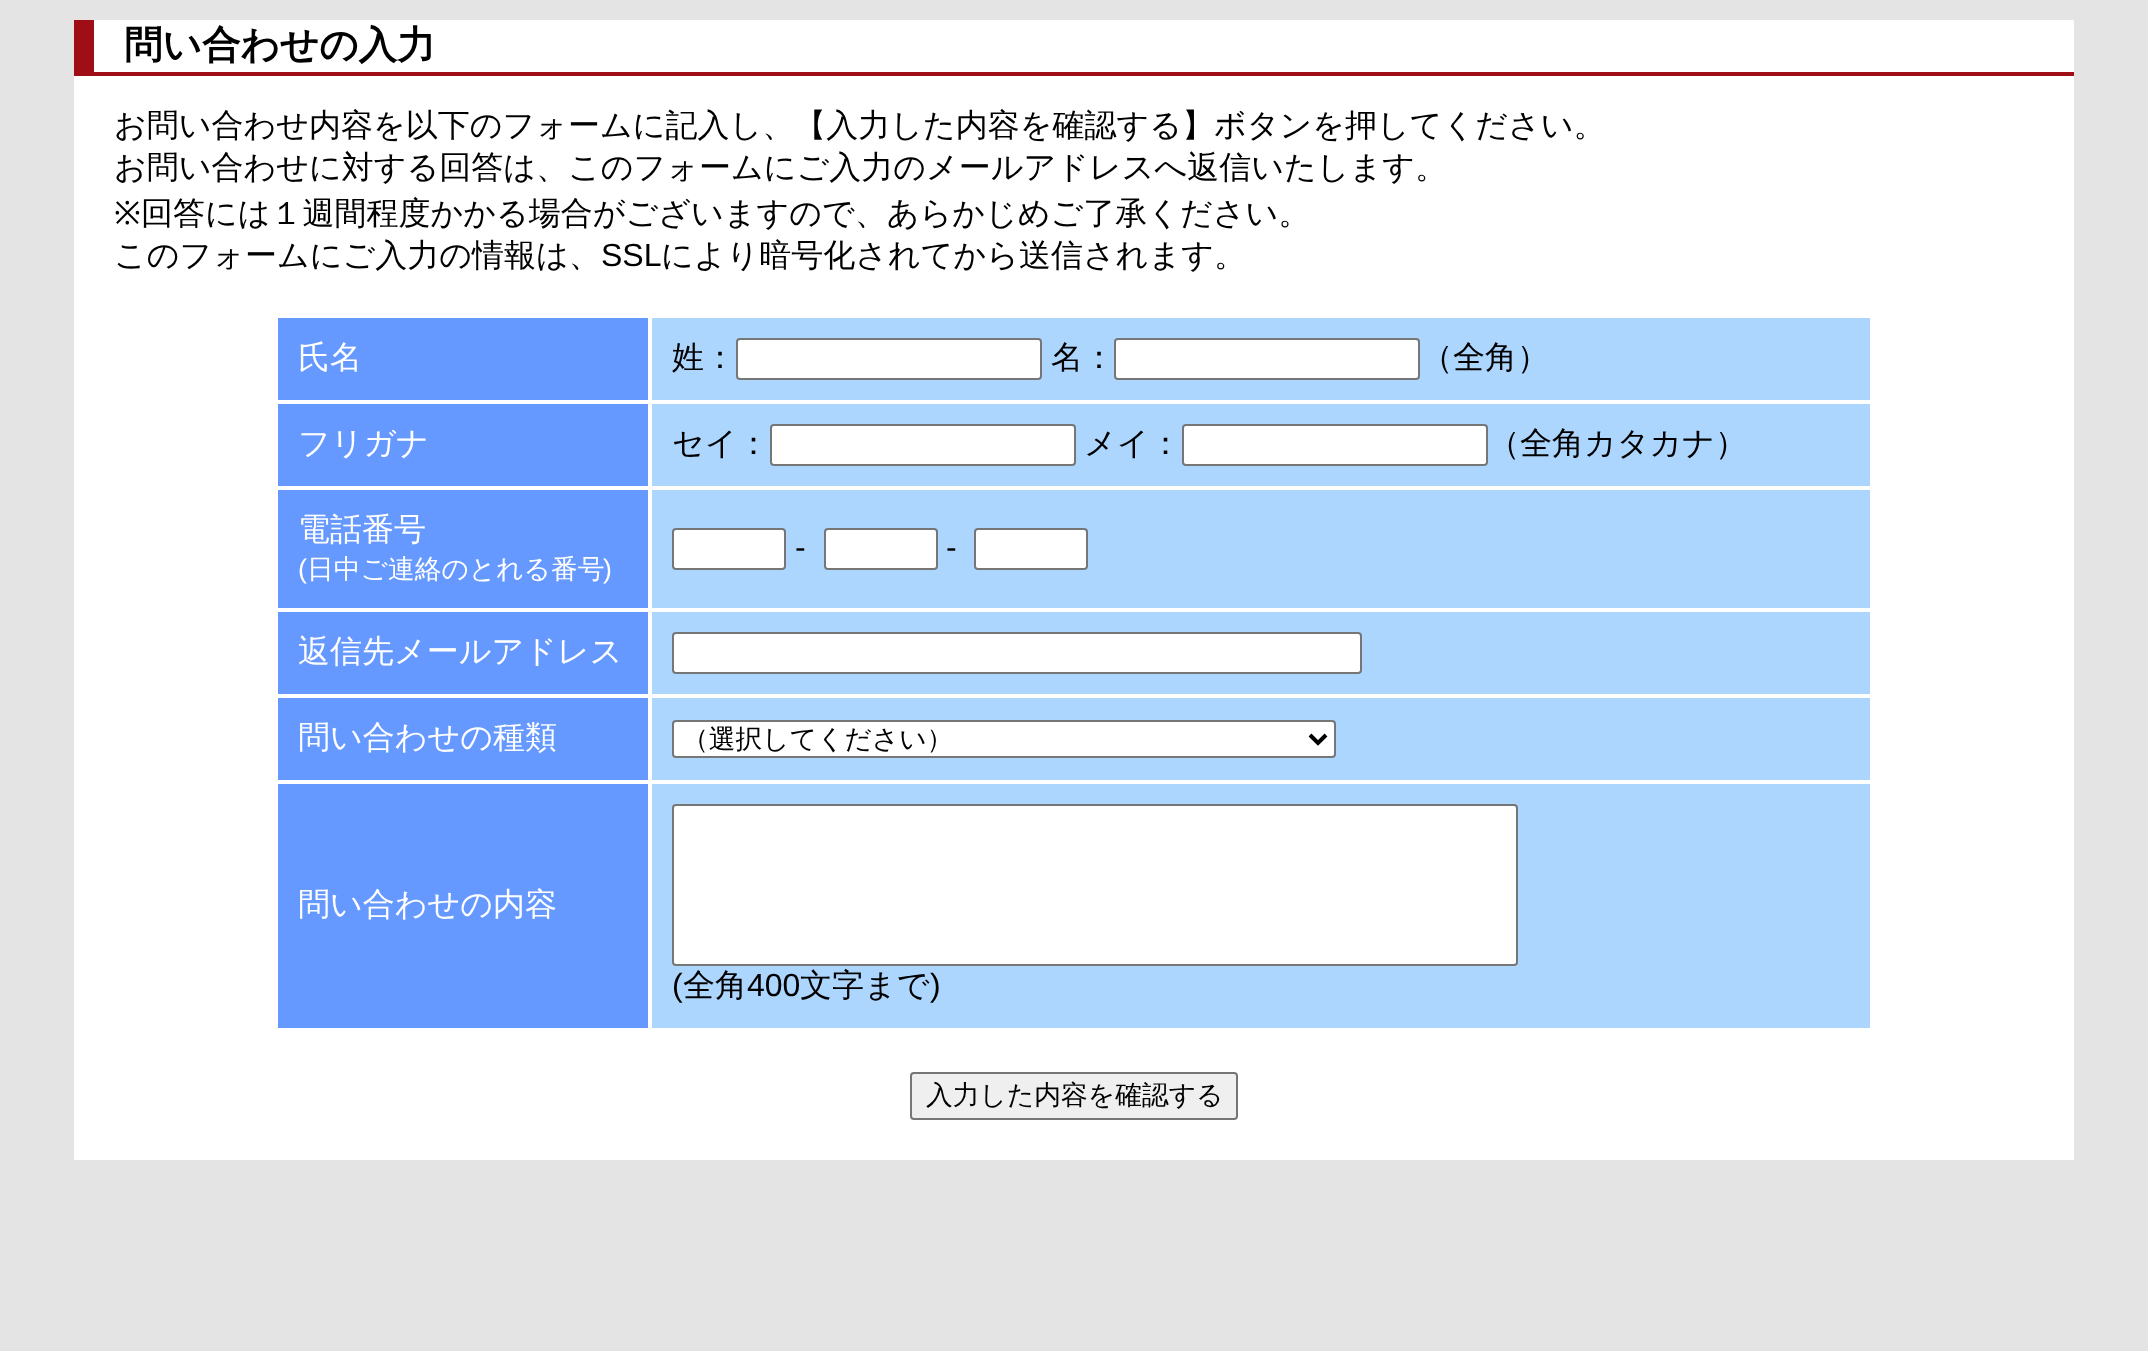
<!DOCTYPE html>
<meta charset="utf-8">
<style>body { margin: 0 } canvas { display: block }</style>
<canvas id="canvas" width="2148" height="1351"></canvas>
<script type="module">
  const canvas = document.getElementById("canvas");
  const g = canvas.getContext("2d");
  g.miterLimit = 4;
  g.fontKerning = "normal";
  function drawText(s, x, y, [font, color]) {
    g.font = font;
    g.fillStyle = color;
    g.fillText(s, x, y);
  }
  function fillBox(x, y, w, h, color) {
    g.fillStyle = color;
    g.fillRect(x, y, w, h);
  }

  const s1 = ["bold 38.5px WenQuanYi Zen Hei", "#000000"];
  const s2 = ["500 32px WenQuanYi Zen Hei", "#000000"];
  const s3 = ["32px Noto Sans", "#000000"];
  const s4 = ["32px Liberation Sans", "#000000"];
  const s5 = ["500 32px WenQuanYi Zen Hei", "#FFFFFF"];
  const s6 = ["26.75px Liberation Sans", "#FFFFFF"];
  const s7 = ["500 26.75px WenQuanYi Zen Hei", "#FFFFFF"];
  const s8 = ["500 26.75px WenQuanYi Zen Hei", "#000000"];

  fillBox(0, 0, 2148, 1351, "#E4E4E4");
  fillBox(74, 20, 2000, 1140, "#FFFFFF");
  fillBox(94, 72, 1980, 4, "#A00E15");
  fillBox(74, 20, 20, 56, "#A00E15");
  drawText("問い合わせの入力", 124, 58, s1);
  drawText("お問い合わせ内容を以下のフォームに記入し、【入力した内容を確認する】ボタンを押してください。", 114, 136, s2);
  drawText("お問い合わせに対する回答は、このフォームにご入力のメールアドレスへ返信いたします。", 114, 178, s2);
  drawText("※", 114, 224, s3);
  drawText("回答には１週間程度かかる場合がございますので、あらかじめご了承ください。", 141, 224, s2);
  drawText("このフォームにご入力の情報は、", 114, 266, s2);
  drawText("SSL", 601, 266, s4);
  drawText("により暗号化されてから送信されます。", 661, 266, s2);
  fillBox(278, 318, 370, 82, "#6699FF");
  drawText("氏名", 298, 368, s5);
  fillBox(652, 318, 1218, 82, "#ADD6FF");
  drawText("姓：", 672, 368, s2);
  g.fillStyle = "#FFFFFF";
  g.beginPath();
  g.roundRect(737, 339, 304, 40, 3);
  g.fill();
  g.strokeStyle = "#767676";
  g.lineWidth = 2;
  g.stroke();
  drawText("名：", 1051, 368, s2);
  g.fillStyle = "#FFFFFF";
  g.beginPath();
  g.roundRect(1115, 339, 304, 40, 3);
  g.fill();
  g.stroke();
  drawText("（全角）", 1421, 368, s2);
  fillBox(278, 404, 370, 82, "#6699FF");
  drawText("フリガナ", 298, 454, s5);
  fillBox(652, 404, 1218, 82, "#ADD6FF");
  drawText("セイ：", 672, 454, s2);
  g.fillStyle = "#FFFFFF";
  g.beginPath();
  g.roundRect(771, 425, 304, 40, 3);
  g.fill();
  g.stroke();
  drawText("メイ：", 1084, 454, s2);
  g.fillStyle = "#FFFFFF";
  g.beginPath();
  g.roundRect(1183, 425, 304, 40, 3);
  g.fill();
  g.stroke();
  drawText("（全角カタカナ）", 1488, 454, s2);
  fillBox(278, 490, 370, 118, "#6699FF");
  drawText("電話番号", 298, 540, s5);
  drawText("(", 298, 578, s6);
  drawText("日中ご連絡のとれる番号", 307, 578, s7);
  drawText(")", 603, 578, s6);
  fillBox(652, 490, 1218, 118, "#ADD6FF");
  g.fillStyle = "#FFFFFF";
  g.beginPath();
  g.roundRect(673, 529, 112, 40, 3);
  g.fill();
  g.stroke();
  drawText("-", 795, 558, s4);
  g.fillStyle = "#FFFFFF";
  g.beginPath();
  g.roundRect(825, 529, 112, 40, 3);
  g.fill();
  g.stroke();
  drawText("-", 946, 558, s4);
  g.fillStyle = "#FFFFFF";
  g.beginPath();
  g.roundRect(975, 529, 112, 40, 3);
  g.fill();
  g.stroke();
  fillBox(278, 612, 370, 82, "#6699FF");
  drawText("返信先メールアドレス", 298, 662, s5);
  fillBox(652, 612, 1218, 82, "#ADD6FF");
  g.fillStyle = "#FFFFFF";
  g.beginPath();
  g.roundRect(673, 633, 688, 40, 3);
  g.fill();
  g.stroke();
  fillBox(278, 698, 370, 82, "#6699FF");
  drawText("問い合わせの種類", 298, 748, s5);
  fillBox(652, 698, 1218, 82, "#ADD6FF");
  g.fillStyle = "#FFFFFF";
  g.beginPath();
  g.roundRect(673, 721, 662, 36, 3);
  g.fill();
  g.stroke();
  g.beginPath();
  g.moveTo(1310, 735);
  g.lineTo(1318, 743);
  g.lineTo(1326, 735);
  g.strokeStyle = "#000000";
  g.lineWidth = 4;
  g.stroke();
  drawText("（選択してください）", 682, 748, s8);
  fillBox(278, 784, 370, 244, "#6699FF");
  drawText("問い合わせの内容", 298, 915, s5);
  fillBox(652, 784, 1218, 244, "#ADD6FF");
  g.fillStyle = "#FFFFFF";
  g.beginPath();
  g.roundRect(673, 805, 844, 160, 3);
  g.fill();
  g.strokeStyle = "#767676";
  g.lineWidth = 2;
  g.stroke();
  drawText("(", 672, 996, s4);
  drawText("全角", 683, 996, s2);
  drawText("400", 747, 996, s4);
  drawText("文字まで", 800, 996, s2);
  drawText(")", 930, 996, s4);
  g.fillStyle = "#EFEFEF";
  g.beginPath();
  g.roundRect(911, 1073, 326, 46, 3);
  g.fill();
  g.stroke();
  drawText("入力した内容を確認する", 926, 1104, s8);
</script>
